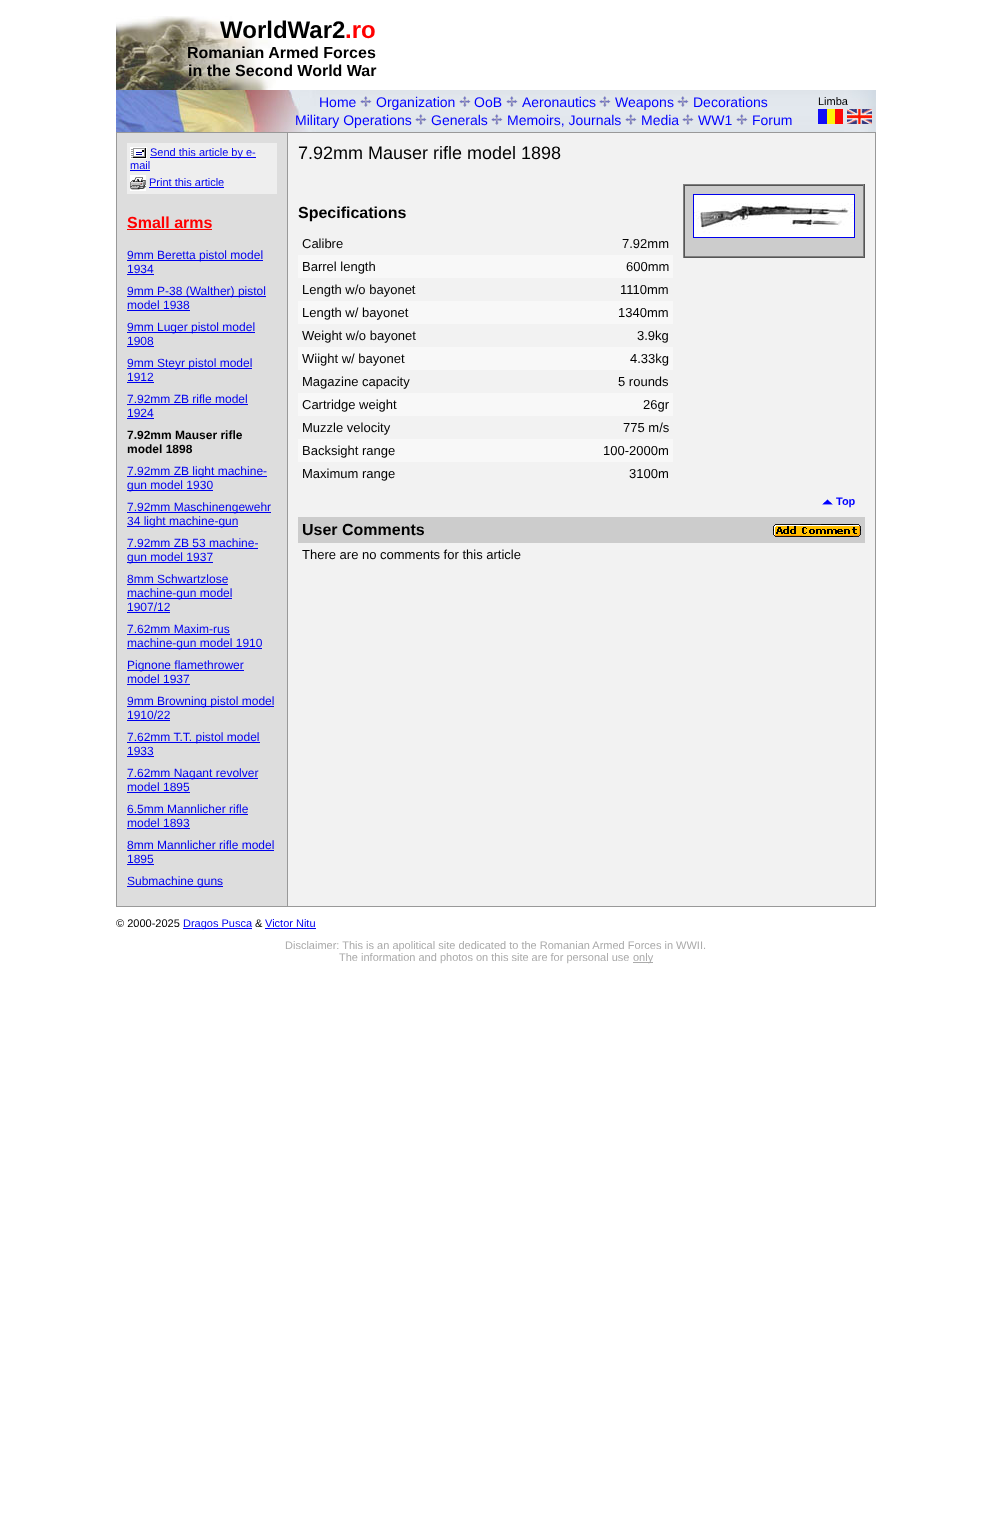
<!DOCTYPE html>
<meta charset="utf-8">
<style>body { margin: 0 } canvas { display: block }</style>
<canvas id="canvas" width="992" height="1536"></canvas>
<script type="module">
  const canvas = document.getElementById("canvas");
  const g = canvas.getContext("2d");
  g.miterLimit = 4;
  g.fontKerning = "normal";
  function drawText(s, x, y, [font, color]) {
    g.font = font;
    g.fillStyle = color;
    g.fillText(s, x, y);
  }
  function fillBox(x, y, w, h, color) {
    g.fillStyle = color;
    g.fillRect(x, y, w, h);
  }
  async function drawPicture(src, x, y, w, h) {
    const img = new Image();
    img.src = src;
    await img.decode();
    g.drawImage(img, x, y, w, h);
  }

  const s1 = ["bold 24px Liberation Sans", "#000000"];
  const s2 = ["bold 24px Liberation Sans", "#FF0000"];
  const s3 = ["bold 16px Liberation Sans", "#000000"];
  const s4 = ["14px Liberation Sans", "#0000FF"];
  const s5 = ["11px Liberation Sans", "#000000"];
  const s6 = ["11px Liberation Sans", "#0000EE"];
  const s7 = ["bold 16px Liberation Sans", "#FF0000"];
  const s8 = ["12px Liberation Sans", "#0000EE"];
  const s9 = ["bold 12px Liberation Sans", "#000000"];
  const s10 = ["18px Liberation Sans", "#000000"];
  const s11 = ["13px Liberation Sans", "#000000"];
  const s12 = ["bold 11px Liberation Sans", "#0000FF"];
  const s13 = ["11px Liberation Sans", "#AAAAAA"];

  fillBox(0, 0, 992, 1536, "#FFFFFF");
  await drawPicture("pic1.png", 116, 16, 160, 74);
  drawText("WorldWar2", 220, 38, s1);
  drawText(".ro", 345, 38, s2);
  drawText("Romanian Armed Forces", 187, 58, s3);
  drawText("in the Second World War", 188, 76, s3);
  await drawPicture("pic2.png", 116, 90, 760, 42);
  drawText("Home", 319, 107, s4);
  await drawPicture("pic3.png", 360, 96, 12, 11);
  drawText("Organization", 376, 107, s4);
  await drawPicture("pic3.png", 459, 96, 12, 11);
  drawText("OoB", 474, 107, s4);
  await drawPicture("pic3.png", 506, 96, 12, 11);
  drawText("Aeronautics", 522, 107, s4);
  await drawPicture("pic3.png", 599, 96, 12, 11);
  drawText("Weapons", 615, 107, s4);
  await drawPicture("pic3.png", 677, 96, 12, 11);
  drawText("Decorations", 693, 107, s4);
  drawText("Military Operations", 295, 125, s4);
  await drawPicture("pic3.png", 415, 114, 12, 11);
  drawText("Generals", 431, 125, s4);
  await drawPicture("pic3.png", 491, 114, 12, 11);
  drawText("Memoirs, Journals", 507, 125, s4);
  await drawPicture("pic3.png", 625, 114, 12, 11);
  drawText("Media", 641, 125, s4);
  await drawPicture("pic3.png", 682, 114, 12, 11);
  drawText("WW1", 698, 125, s4);
  await drawPicture("pic3.png", 736, 114, 12, 11);
  drawText("Forum", 752, 125, s4);
  drawText("Limba", 818, 105, s5);
  await drawPicture("pic4.png", 818, 109, 25, 15);
  await drawPicture("pic5.png", 847, 109, 25, 15);
  fillBox(116, 132, 760, 1, "#999999");
  fillBox(116, 133, 1, 773, "#999999");
  fillBox(117, 133, 170, 773, "#DDDDDD");
  fillBox(127, 143, 150, 51, "#EEEEEE");
  await drawPicture("pic6.png", 130, 147, 17, 12);
  fillBox(150, 157, 106, 1, "#0000EE");
  drawText("Send this article by e-", 150, 156, s6);
  drawText("mail", 130, 169, s6);
  fillBox(130, 170, 20, 1, "#0000EE");
  await drawPicture("pic7.png", 130, 175, 16, 16);
  drawText("Print this article", 149, 186, s6);
  fillBox(149, 187, 75, 1, "#0000EE");
  drawText("Small arms", 127, 228, s7);
  fillBox(127, 229, 85, 1, "#FF0000");
  fillBox(127, 260, 136, 1, "#0000EE");
  drawText("9mm Beretta pistol model", 127, 259, s8);
  drawText("1934", 127, 273, s8);
  fillBox(127, 274, 27, 1, "#0000EE");
  fillBox(127, 296, 139, 1, "#0000EE");
  drawText("9mm P-38 (Walther) pistol", 127, 295, s8);
  drawText("model 1938", 127, 309, s8);
  fillBox(127, 310, 63, 1, "#0000EE");
  fillBox(127, 332, 128, 1, "#0000EE");
  drawText("9mm Luger pistol model", 127, 331, s8);
  drawText("1908", 127, 345, s8);
  fillBox(127, 346, 27, 1, "#0000EE");
  fillBox(127, 368, 125, 1, "#0000EE");
  drawText("9mm Steyr pistol model", 127, 367, s8);
  drawText("1912", 127, 381, s8);
  fillBox(127, 382, 27, 1, "#0000EE");
  drawText("7.92mm ZB rifle model", 127, 403, s8);
  fillBox(127, 404, 121, 1, "#0000EE");
  drawText("1924", 127, 417, s8);
  fillBox(127, 418, 27, 1, "#0000EE");
  drawText("7.92mm Mauser rifle", 127, 439, s9);
  drawText("model 1898", 127, 453, s9);
  fillBox(127, 476, 140, 1, "#0000EE");
  drawText("7.92mm ZB light machine-", 127, 475, s8);
  fillBox(127, 490, 86, 1, "#0000EE");
  drawText("gun model 1930", 127, 489, s8);
  fillBox(127, 512, 144, 1, "#0000EE");
  drawText("7.92mm Maschinengewehr", 127, 511, s8);
  fillBox(127, 526, 111, 1, "#0000EE");
  drawText("34 light machine-gun", 127, 525, s8);
  drawText("7.92mm ZB 53 machine-", 127, 547, s8);
  fillBox(127, 548, 131, 1, "#0000EE");
  fillBox(127, 562, 86, 1, "#0000EE");
  drawText("gun model 1937", 127, 561, s8);
  drawText("8mm Schwartzlose", 127, 583, s8);
  fillBox(127, 584, 101, 1, "#0000EE");
  fillBox(127, 598, 105, 1, "#0000EE");
  drawText("machine-gun model", 127, 597, s8);
  drawText("1907/12", 127, 611, s8);
  fillBox(127, 612, 43, 1, "#0000EE");
  drawText("7.62mm Maxim-rus", 127, 633, s8);
  fillBox(127, 634, 103, 1, "#0000EE");
  fillBox(127, 648, 135, 1, "#0000EE");
  drawText("machine-gun model 1910", 127, 647, s8);
  fillBox(127, 670, 117, 1, "#0000EE");
  drawText("Pignone flamethrower", 127, 669, s8);
  drawText("model 1937", 127, 683, s8);
  fillBox(127, 684, 63, 1, "#0000EE");
  fillBox(127, 706, 147, 1, "#0000EE");
  drawText("9mm Browning pistol model", 127, 705, s8);
  drawText("1910/22", 127, 719, s8);
  fillBox(127, 720, 43, 1, "#0000EE");
  fillBox(127, 742, 133, 1, "#0000EE");
  drawText("7.62mm T.T. pistol model", 127, 741, s8);
  drawText("1933", 127, 755, s8);
  fillBox(127, 756, 27, 1, "#0000EE");
  fillBox(127, 778, 131, 1, "#0000EE");
  drawText("7.62mm Nagant revolver", 127, 777, s8);
  drawText("model 1895", 127, 791, s8);
  fillBox(127, 792, 63, 1, "#0000EE");
  drawText("6.5mm Mannlicher rifle", 127, 813, s8);
  fillBox(127, 814, 121, 1, "#0000EE");
  drawText("model 1893", 127, 827, s8);
  fillBox(127, 828, 63, 1, "#0000EE");
  drawText("8mm Mannlicher rifle model", 127, 849, s8);
  fillBox(127, 850, 147, 1, "#0000EE");
  drawText("1895", 127, 863, s8);
  fillBox(127, 864, 27, 1, "#0000EE");
  fillBox(127, 886, 96, 1, "#0000EE");
  drawText("Submachine guns", 127, 885, s8);
  fillBox(287, 133, 1, 773, "#999999");
  fillBox(288, 133, 587, 773, "#F2F2F2");
  drawText("7.92mm Mauser rifle model 1898", 298, 159, s10);
  drawText("Specifications", 298, 218, s3);
  fillBox(685, 186, 178, 70, "#CCCCCC");
  fillBox(683, 184, 182, 1, "#808080");
  fillBox(864, 184, 1, 74, "#555555");
  fillBox(683, 257, 182, 1, "#555555");
  fillBox(683, 184, 1, 74, "#808080");
  fillBox(684, 185, 180, 1, "#555555");
  fillBox(863, 185, 1, 72, "#808080");
  fillBox(684, 256, 180, 1, "#808080");
  fillBox(684, 185, 1, 72, "#555555");
  g.strokeStyle = "#0000EE";
  g.strokeRect(693.5, 194.5, 161, 43);
  await drawPicture("pic8.png", 694, 195, 160, 42);
  drawText("Calibre", 302, 248, s11);
  drawText("7.92mm", 622, 248, s11);
  fillBox(298, 255, 375, 23, "#F8F8F8");
  drawText("Barrel length", 302, 271, s11);
  drawText("600mm", 626, 271, s11);
  drawText("Length w/o bayonet", 302, 294, s11);
  drawText("1110mm", 620, 294, s11);
  fillBox(298, 301, 375, 23, "#F8F8F8");
  drawText("Length w/ bayonet", 302, 317, s11);
  drawText("1340mm", 618, 317, s11);
  drawText("Weight w/o bayonet", 302, 340, s11);
  drawText("3.9kg", 637, 340, s11);
  fillBox(298, 347, 375, 23, "#F8F8F8");
  drawText("Wiight w/ bayonet", 302, 363, s11);
  drawText("4.33kg", 630, 363, s11);
  drawText("Magazine capacity", 302, 386, s11);
  drawText("5 rounds", 618, 386, s11);
  fillBox(298, 393, 375, 23, "#F8F8F8");
  drawText("Cartridge weight", 302, 409, s11);
  drawText("26gr", 643, 409, s11);
  drawText("Muzzle velocity", 302, 432, s11);
  drawText("775 m/s", 623, 432, s11);
  fillBox(298, 439, 375, 23, "#F8F8F8");
  drawText("Backsight range", 302, 455, s11);
  drawText("100-2000m", 603, 455, s11);
  drawText("Maximum range", 302, 478, s11);
  drawText("3100m", 629, 478, s11);
  await drawPicture("pic9.png", 822, 499, 11, 6);
  drawText("Top", 836, 505, s12);
  fillBox(298, 517, 567, 26, "#CCCCCC");
  drawText("User Comments", 302, 535, s3);
  await drawPicture("pic10.png", 773, 524, 88, 13);
  drawText("There are no comments for this article", 302, 559, s11);
  fillBox(875, 133, 1, 773, "#999999");
  fillBox(116, 906, 760, 1, "#999999");
  drawText("© 2000-2025", 116, 927, s5);
  fillBox(183, 928, 69, 1, "#0000EE");
  drawText("Dragos Pusca", 183, 927, s6);
  drawText("&", 255, 927, s5);
  drawText("Victor Nitu", 265, 927, s6);
  fillBox(265, 928, 51, 1, "#0000EE");
  drawText("Disclaimer: This is an apolitical site dedicated to the Romanian Armed Forces in WWII.", 285, 949, s13);
  drawText("The information and photos on this site are for personal use", 339, 961, s13);
  fillBox(633, 962, 20, 1, "#AAAAAA");
  drawText("only", 633, 961, s13);
</script>
